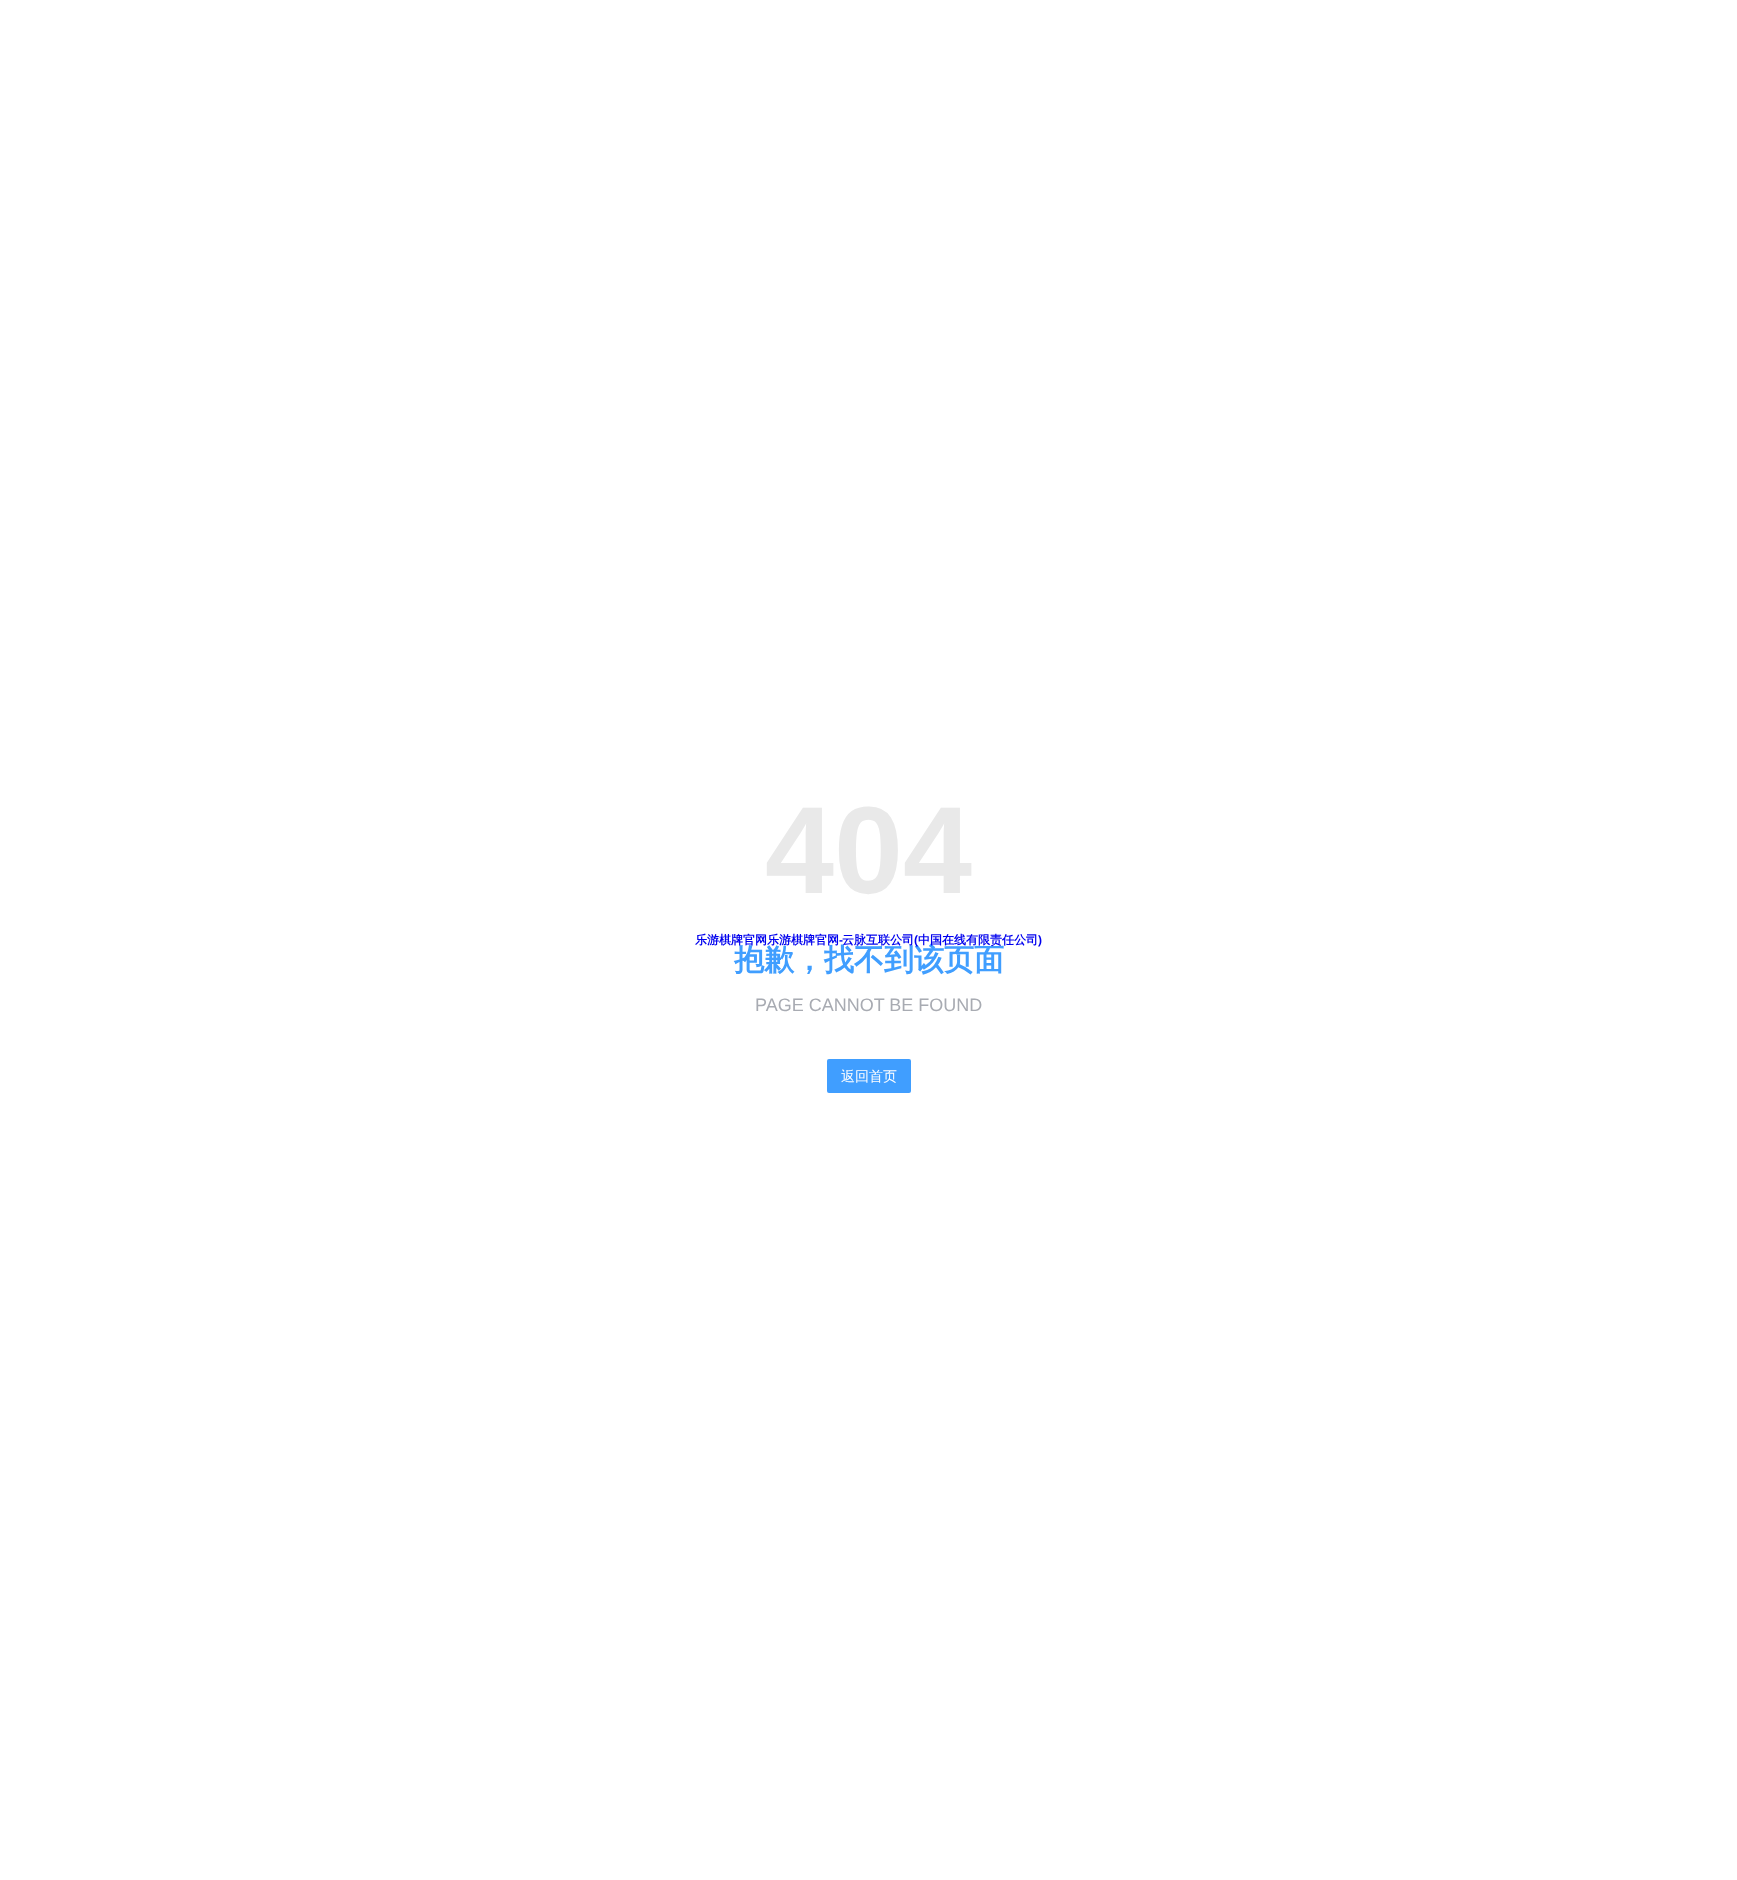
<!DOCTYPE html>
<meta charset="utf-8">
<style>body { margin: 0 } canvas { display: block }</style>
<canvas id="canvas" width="1737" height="1880"></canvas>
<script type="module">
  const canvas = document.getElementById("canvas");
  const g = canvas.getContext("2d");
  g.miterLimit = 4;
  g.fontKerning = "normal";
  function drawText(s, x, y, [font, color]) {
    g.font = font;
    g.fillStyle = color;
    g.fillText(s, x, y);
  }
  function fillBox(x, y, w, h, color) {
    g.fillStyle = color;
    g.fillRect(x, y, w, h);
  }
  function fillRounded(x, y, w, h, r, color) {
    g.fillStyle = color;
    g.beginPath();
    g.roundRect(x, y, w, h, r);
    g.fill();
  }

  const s1 = ["bold 124px Liberation Sans", "#E9E9E9"];
  const s2 = ["bold 30px WenQuanYi Zen Hei", "#409EFF"];
  const s3 = ["18px Liberation Sans", "#A8ABB2"];
  const s4 = ["500 14px WenQuanYi Zen Hei", "#FFFFFF"];
  const s5 = ["bold 12px WenQuanYi Zen Hei", "#0000EE"];
  const s6 = ["bold 12px Liberation Sans", "#0000EE"];

  fillBox(0, 0, 1737, 1880, "#FFFFFF");
  drawText("404", 765, 893, s1);
  drawText("抱歉，找不到该页面", 734, 970, s2);
  drawText("PAGE CANNOT BE FOUND", 755, 1011, s3);
  fillRounded(827, 1059, 84, 34, 2, "#409EFF");
  drawText("返回首页", 841, 1081, s4);
  drawText("乐游棋牌官网乐游棋牌官网", 695, 944, s5);
  drawText("-", 839, 944, s6);
  drawText("云脉互联公司", 842, 944, s5);
  drawText("(", 914, 944, s6);
  drawText("中国在线有限责任公司", 918, 944, s5);
  drawText(")", 1038, 944, s6);
</script>
